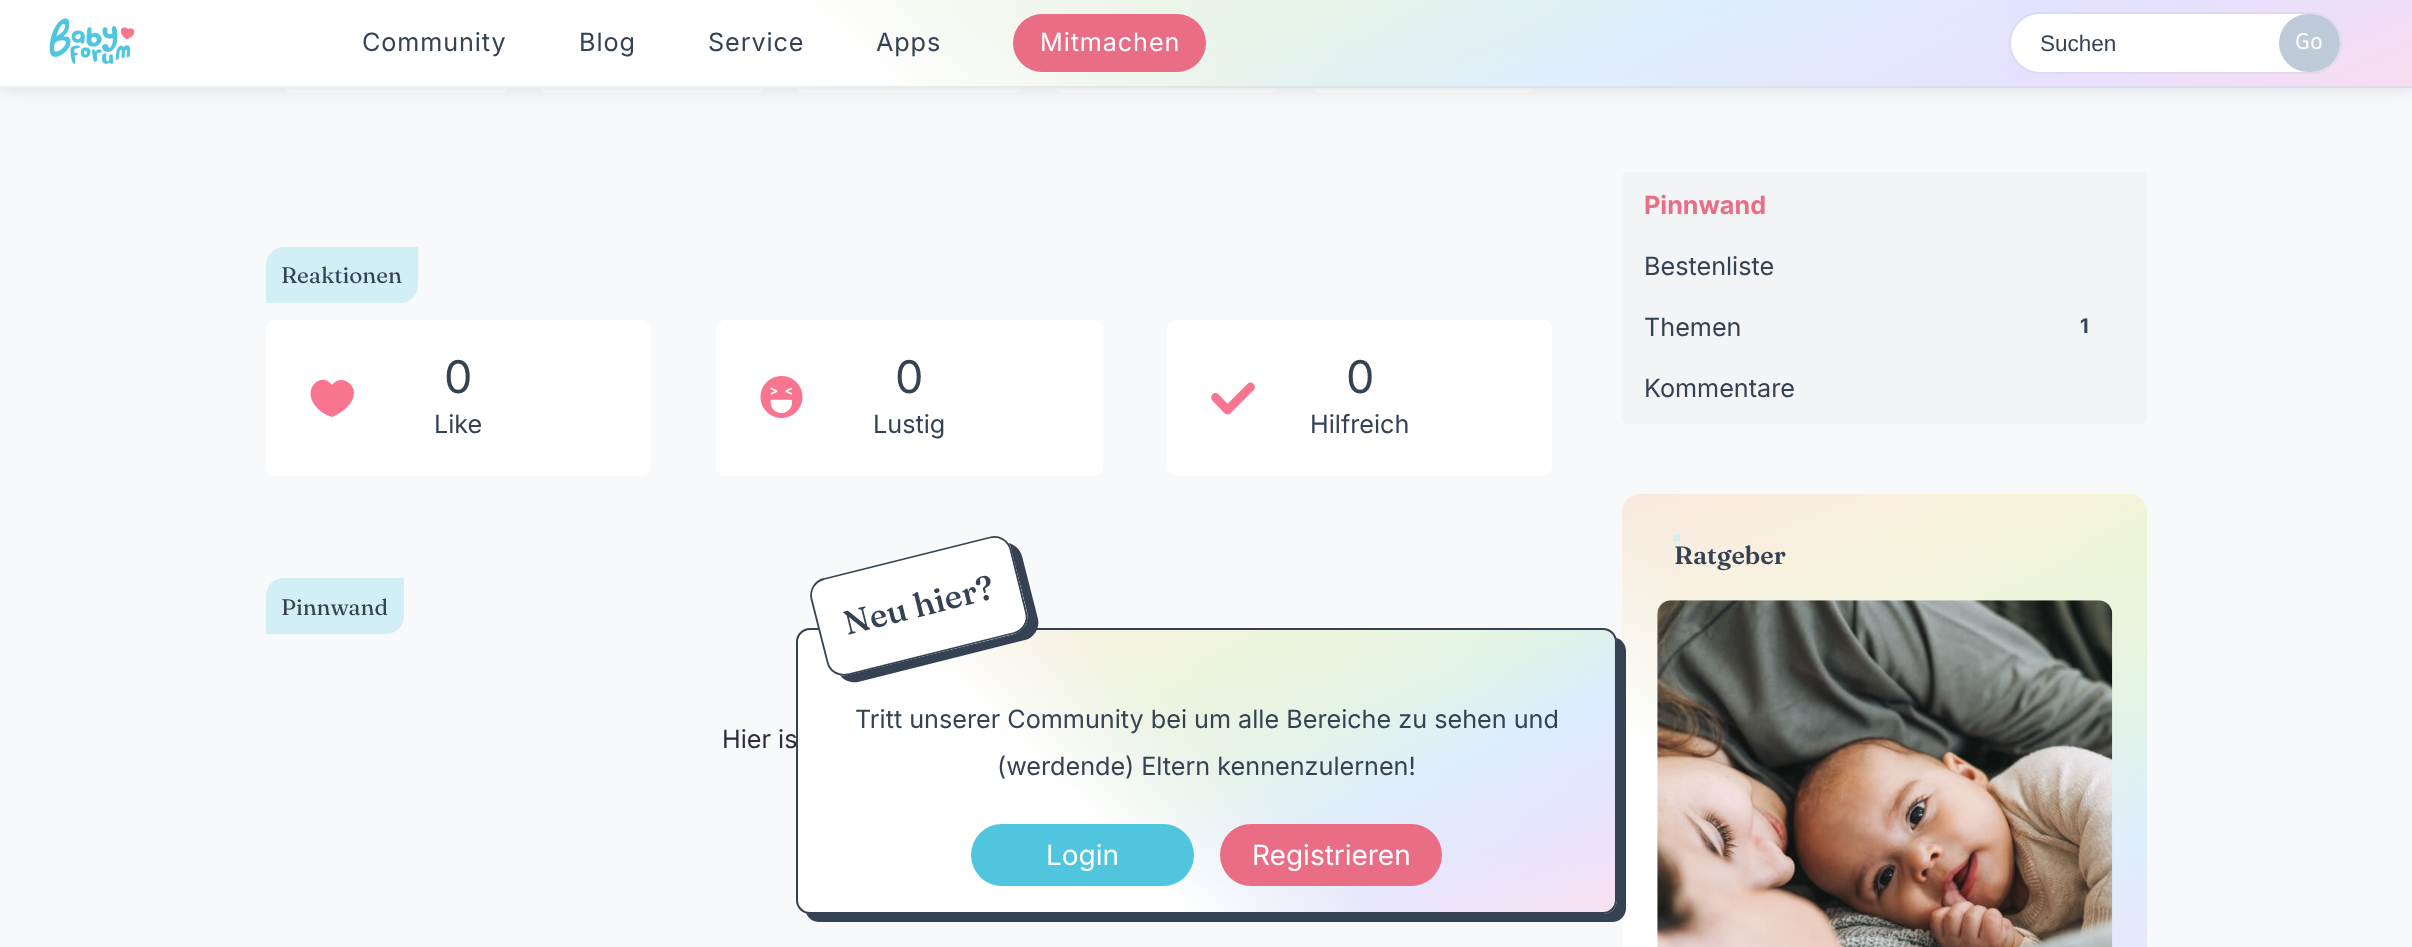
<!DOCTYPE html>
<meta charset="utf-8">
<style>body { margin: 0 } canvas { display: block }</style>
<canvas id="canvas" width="2412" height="947"></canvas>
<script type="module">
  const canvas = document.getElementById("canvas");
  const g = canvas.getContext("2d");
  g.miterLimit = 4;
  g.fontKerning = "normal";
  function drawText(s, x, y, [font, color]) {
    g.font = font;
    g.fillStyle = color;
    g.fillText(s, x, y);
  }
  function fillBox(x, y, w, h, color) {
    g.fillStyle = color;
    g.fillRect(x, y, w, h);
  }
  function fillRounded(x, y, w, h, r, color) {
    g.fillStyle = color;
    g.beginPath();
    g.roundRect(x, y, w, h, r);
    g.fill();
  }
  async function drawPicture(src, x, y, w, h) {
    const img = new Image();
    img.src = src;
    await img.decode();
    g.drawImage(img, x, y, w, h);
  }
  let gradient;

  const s1 = ["25.2px Inter", "#344254"];
  const s2 = ["25.2px Inter", "#FFFFFF"];
  const s3 = ["22.5px Liberation Sans", "#344254"];
  const s4 = ["22.5px Asap", "#FFFFFF"];
  const s5 = ["bold 25.2px Inter", "#EA6D86"];
  const s6 = ["bold 20px Inter", "#344254"];
  const s7 = ["600 25.2px Fraunces", "#344254"];
  const s8 = ["28px Inter", "#FFFFFF"];
  const s9 = ["22.5px Fraunces", "#344254"];
  const s10 = ["45px Inter", "#344254"];
  const s11 = ["25.2px Inter", "#2B2E3D"];

  fillBox(0, 0, 2412, 947, "#F8F9FA");
  fillRounded(284, -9, 225, 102, 9, "#FFFFFF");
  fillRounded(539, -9, 226, 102, 9, "#FFFFFF");
  fillRounded(796, -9, 226, 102, 9, "#FFFFFF");
  fillRounded(1054, -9, 225, 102, 9, "#FFFFFF");
  fillRounded(1311, -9, 224, 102, 9, "#FFFFFF");
  g.fillStyle = "rgba(19, 32, 66, 0.15)";
  g.filter = "blur(9px)";
  g.beginPath();
  g.rect(0, 0, 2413, 88);
  g.fill();
  g.filter = "none";
  gradient = g.createLinearGradient(1422, 527, 991, -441);
  gradient.addColorStop(0, "#F9DDF1");
  gradient.addColorStop(0.17, "#E5E1FF");
  gradient.addColorStop(0.34, "#DAEDFF");
  gradient.addColorStop(0.5, "#E2F4E3");
  gradient.addColorStop(0.66, "#EBF5D8");
  gradient.addColorStop(0.82, "#FAF2DA");
  gradient.addColorStop(1, "#FBE5D8");
  g.fillStyle = gradient;
  g.fillRect(791, 0, 1621, 86);
  gradient = g.createLinearGradient(1422, 613, 991, -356);
  gradient.addColorStop(0, "#F9DDF1");
  gradient.addColorStop(0.17, "#E5E1FF");
  gradient.addColorStop(0.34, "#DAEDFF");
  gradient.addColorStop(0.5, "#E2F4E3");
  gradient.addColorStop(0.66, "#EBF5D8");
  gradient.addColorStop(0.82, "#FAF2DA");
  gradient.addColorStop(1, "#FBE5D8");
  g.fillStyle = gradient;
  g.fillRect(791, 86, 1621, 2);
  gradient = g.createLinearGradient(1810, -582, 603, 668);
  gradient.addColorStop(0, "rgba(242, 242, 242, 0)");
  gradient.addColorStop(0.47, "rgba(242, 242, 242, 0.29)");
  gradient.addColorStop(0.65, "#FFFFFF");
  g.fillStyle = gradient;
  g.fillRect(0, 0, 2007, 86);
  gradient = g.createLinearGradient(1810, -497, 603, 754);
  gradient.addColorStop(0, "rgba(242, 242, 242, 0)");
  gradient.addColorStop(0.47, "rgba(242, 242, 242, 0.29)");
  gradient.addColorStop(0.65, "#FFFFFF");
  g.fillStyle = gradient;
  g.fillRect(0, 86, 1938, 2);
  fillBox(0, 86, 2412, 2, "rgba(191, 202, 214, 0.28)");
  await drawPicture("pic1.png", 49, 18, 86, 46);
  g.letterSpacing = "0.9px";
  drawText("Community", 362, 51, s1);
  drawText("Blog", 579, 51, s1);
  drawText("Service", 708, 51, s1);
  drawText("Apps", 876, 51, s1);
  fillRounded(1013, 14, 193, 58, 29, "#EA6D86");
  drawText("Mitmachen", 1040, 51, s2);
  g.beginPath();
  g.roundRect(2010, 13, 331, 60, 30);
  g.strokeStyle = "rgba(191, 202, 214, 0.28)";
  g.lineWidth = 2;
  g.stroke();
  fillRounded(2011, 14, 329, 58, 29, "#FFFFFF");
  g.letterSpacing = "0px";
  drawText("Suchen", 2040, 51, s3);
  fillRounded(2279, 14, 61, 58, 29, "#BFCAD9");
  drawText("Go", 2295, 49, s4);
  fillRounded(1622, 172, 525, 252, 5, "#F2F4F6");
  drawText("Pinnwand", 1644, 214, s5);
  drawText("Bestenliste", 1644, 275, s1);
  drawText("Themen", 1644, 336, s1);
  drawText("1", 2080, 333, s6);
  drawText("Kommentare", 1644, 397, s1);
  gradient = g.createLinearGradient(2046, 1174, 1723, 449);
  gradient.addColorStop(0, "#F9DDF1");
  gradient.addColorStop(0.17, "#E5E1FF");
  gradient.addColorStop(0.34, "#DAEDFF");
  gradient.addColorStop(0.5, "#E2F4E3");
  gradient.addColorStop(0.66, "#EBF5D8");
  gradient.addColorStop(0.82, "#FAF2DA");
  gradient.addColorStop(1, "#FBE5D8");
  g.fillStyle = gradient;
  g.beginPath();
  g.roundRect(1622, 494, 525, 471, 18);
  g.fill();
  gradient = g.createLinearGradient(2170, 516, 1599, 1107);
  gradient.addColorStop(0, "rgba(242, 242, 242, 0)");
  gradient.addColorStop(0.47, "rgba(242, 242, 242, 0.29)");
  gradient.addColorStop(0.65, "#FFFFFF");
  g.fillStyle = gradient;
  g.beginPath();
  g.roundRect(1622, 494, 525, 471, 18);
  g.fill();
  fillBox(1673, 534, 7, 7, "#D2EFF6");
  drawText("Ratgeber", 1674, 564, s7);
  await drawPicture("pic2.png", 1657, 600, 456, 347);
  g.beginPath();
  g.moveTo(806, 913);
  g.bezierCurveTo(808, 918, 813, 922, 819, 922);
  g.lineTo(1612, 922);
  g.bezierCurveTo(1620, 922, 1626, 916, 1626, 908);
  g.lineTo(1626, 651);
  g.bezierCurveTo(1626, 645, 1622, 639, 1616, 638);
  g.lineTo(1617, 642);
  g.lineTo(1617, 900);
  g.bezierCurveTo(1617, 907, 1611, 914, 1603, 914);
  g.lineTo(810, 914);
  g.closePath();
  g.fill();
  g.save();
  g.beginPath();
  g.roundRect(796, 628, 821, 286, 14);
  g.clip();
  gradient = g.createLinearGradient(1327, 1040, 1087, 501);
  gradient.addColorStop(0, "#F9DDF1");
  gradient.addColorStop(0.17, "#E5E1FF");
  gradient.addColorStop(0.34, "#DAEDFF");
  gradient.addColorStop(0.5, "#E2F4E3");
  gradient.addColorStop(0.66, "#EBF5D8");
  gradient.addColorStop(0.82, "#FAF2DA");
  gradient.addColorStop(1, "#FBE5D8");
  g.fillStyle = gradient;
  g.fillRect(798, 630, 817, 282);
  gradient = g.createLinearGradient(1474, 494, 939, 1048);
  gradient.addColorStop(0, "rgba(242, 242, 242, 0)");
  gradient.addColorStop(0.47, "rgba(242, 242, 242, 0.29)");
  gradient.addColorStop(0.65, "#FFFFFF");
  g.fillStyle = gradient;
  g.fillRect(798, 630, 817, 282);
  g.restore();
  g.beginPath();
  g.roundRect(797, 629, 819, 284, 13);
  g.strokeStyle = "#344254";
  g.stroke();
  g.beginPath();
  g.moveTo(840, 675);
  g.bezierCurveTo(844, 681, 851, 683, 858, 682);
  g.lineTo(1025, 640);
  g.bezierCurveTo(1034, 638, 1040, 628, 1038, 619);
  g.lineTo(1022, 556);
  g.bezierCurveTo(1020, 549, 1014, 544, 1008, 543);
  g.bezierCurveTo(1010, 545, 1011, 547, 1011, 549);
  g.lineTo(1027, 612);
  g.bezierCurveTo(1029, 622, 1024, 631, 1014, 634);
  g.lineTo(848, 675);
  g.bezierCurveTo(845, 676, 843, 676, 840, 675);
  g.closePath();
  g.fill();
  g.fillStyle = "#FFFFFF";
  g.beginPath();
  g.moveTo(824, 578);
  g.lineTo(990, 537);
  g.bezierCurveTo(999, 534, 1009, 540, 1011, 549);
  g.lineTo(1027, 612);
  g.bezierCurveTo(1029, 622, 1024, 631, 1014, 634);
  g.lineTo(848, 675);
  g.bezierCurveTo(838, 677, 829, 672, 827, 662);
  g.lineTo(811, 599);
  g.bezierCurveTo(808, 590, 814, 580, 824, 578);
  g.closePath();
  g.fill();
  g.beginPath();
  g.moveTo(824, 579);
  g.lineTo(990, 537.5);
  g.bezierCurveTo(999, 535, 1008, 540.5, 1010.5, 549.5);
  g.lineTo(1026, 612.5);
  g.bezierCurveTo(1028.5, 621.5, 1023, 630.5, 1014, 633);
  g.lineTo(847.5, 674.5);
  g.bezierCurveTo(838.5, 676.5, 829.5, 671, 827.5, 662);
  g.lineTo(811.5, 599);
  g.bezierCurveTo(809.5, 590, 815, 581, 824, 579);
  g.closePath();
  g.lineWidth = 1.8;
  g.stroke();
  g.font = "500 33.5px Fraunces";
  g.fillStyle = "#344254";
  g.save();
  g.translate(847, 635);
  g.rotate(-14 * Math.PI / 180);
  g.fillText("Neu hier?", 0, 0);
  g.restore();
  drawText("Tritt unserer Community bei um alle Bereiche zu sehen und", 855, 728, s1);
  drawText("(werdende) Eltern kennenzulernen!", 997, 775, s1);
  fillRounded(971, 824, 223, 62, 31, "#4FC6DE");
  drawText("Login", 1046, 865, s8);
  fillRounded(1220, 824, 222, 62, 31, "#EA6D86");
  drawText("Registrieren", 1252, 865, s8);
  g.fillStyle = "#D2EFF6";
  g.beginPath();
  g.roundRect(266, 247, 152, 56, [18, 0, 18, 0]);
  g.fill();
  drawText("Reaktionen", 281, 283, s9);
  fillRounded(266, 320, 385, 156, 9, "#FFFFFF");
  g.fillStyle = "#F9748F";
  g.beginPath();
  g.moveTo(354, 392);
  g.bezierCurveTo(353, 381, 339, 375, 332, 385);
  g.bezierCurveTo(322, 371, 303, 387, 314, 404);
  g.bezierCurveTo(318, 410, 325, 415, 332, 417);
  g.bezierCurveTo(342, 413, 354, 404, 354, 392);
  g.closePath();
  g.fill();
  drawText("0", 444, 393, s10);
  drawText("Like", 434, 433, s1);
  fillRounded(716, 320, 387, 156, 9, "#FFFFFF");
  await drawPicture("pic3.png", 760, 376, 43, 42);
  drawText("0", 895, 393, s10);
  drawText("Lustig", 873, 433, s1);
  fillRounded(1167, 320, 385, 156, 9, "#FFFFFF");
  g.beginPath();
  g.moveTo(1215.5, 397.5);
  g.lineTo(1227.5, 410);
  g.lineTo(1250.5, 387);
  g.strokeStyle = "#F9748F";
  g.lineWidth = 8.8;
  g.lineCap = "round";
  g.lineJoin = "round";
  g.stroke();
  drawText("0", 1346, 393, s10);
  drawText("Hilfreich", 1310, 433, s1);
  g.fillStyle = "#D2EFF6";
  g.beginPath();
  g.roundRect(266, 578, 138, 56, [18, 0, 18, 0]);
  g.fill();
  drawText("Pinnwand", 281, 615, s9);
  drawText("Hier is", 722, 748, s11);
</script>
